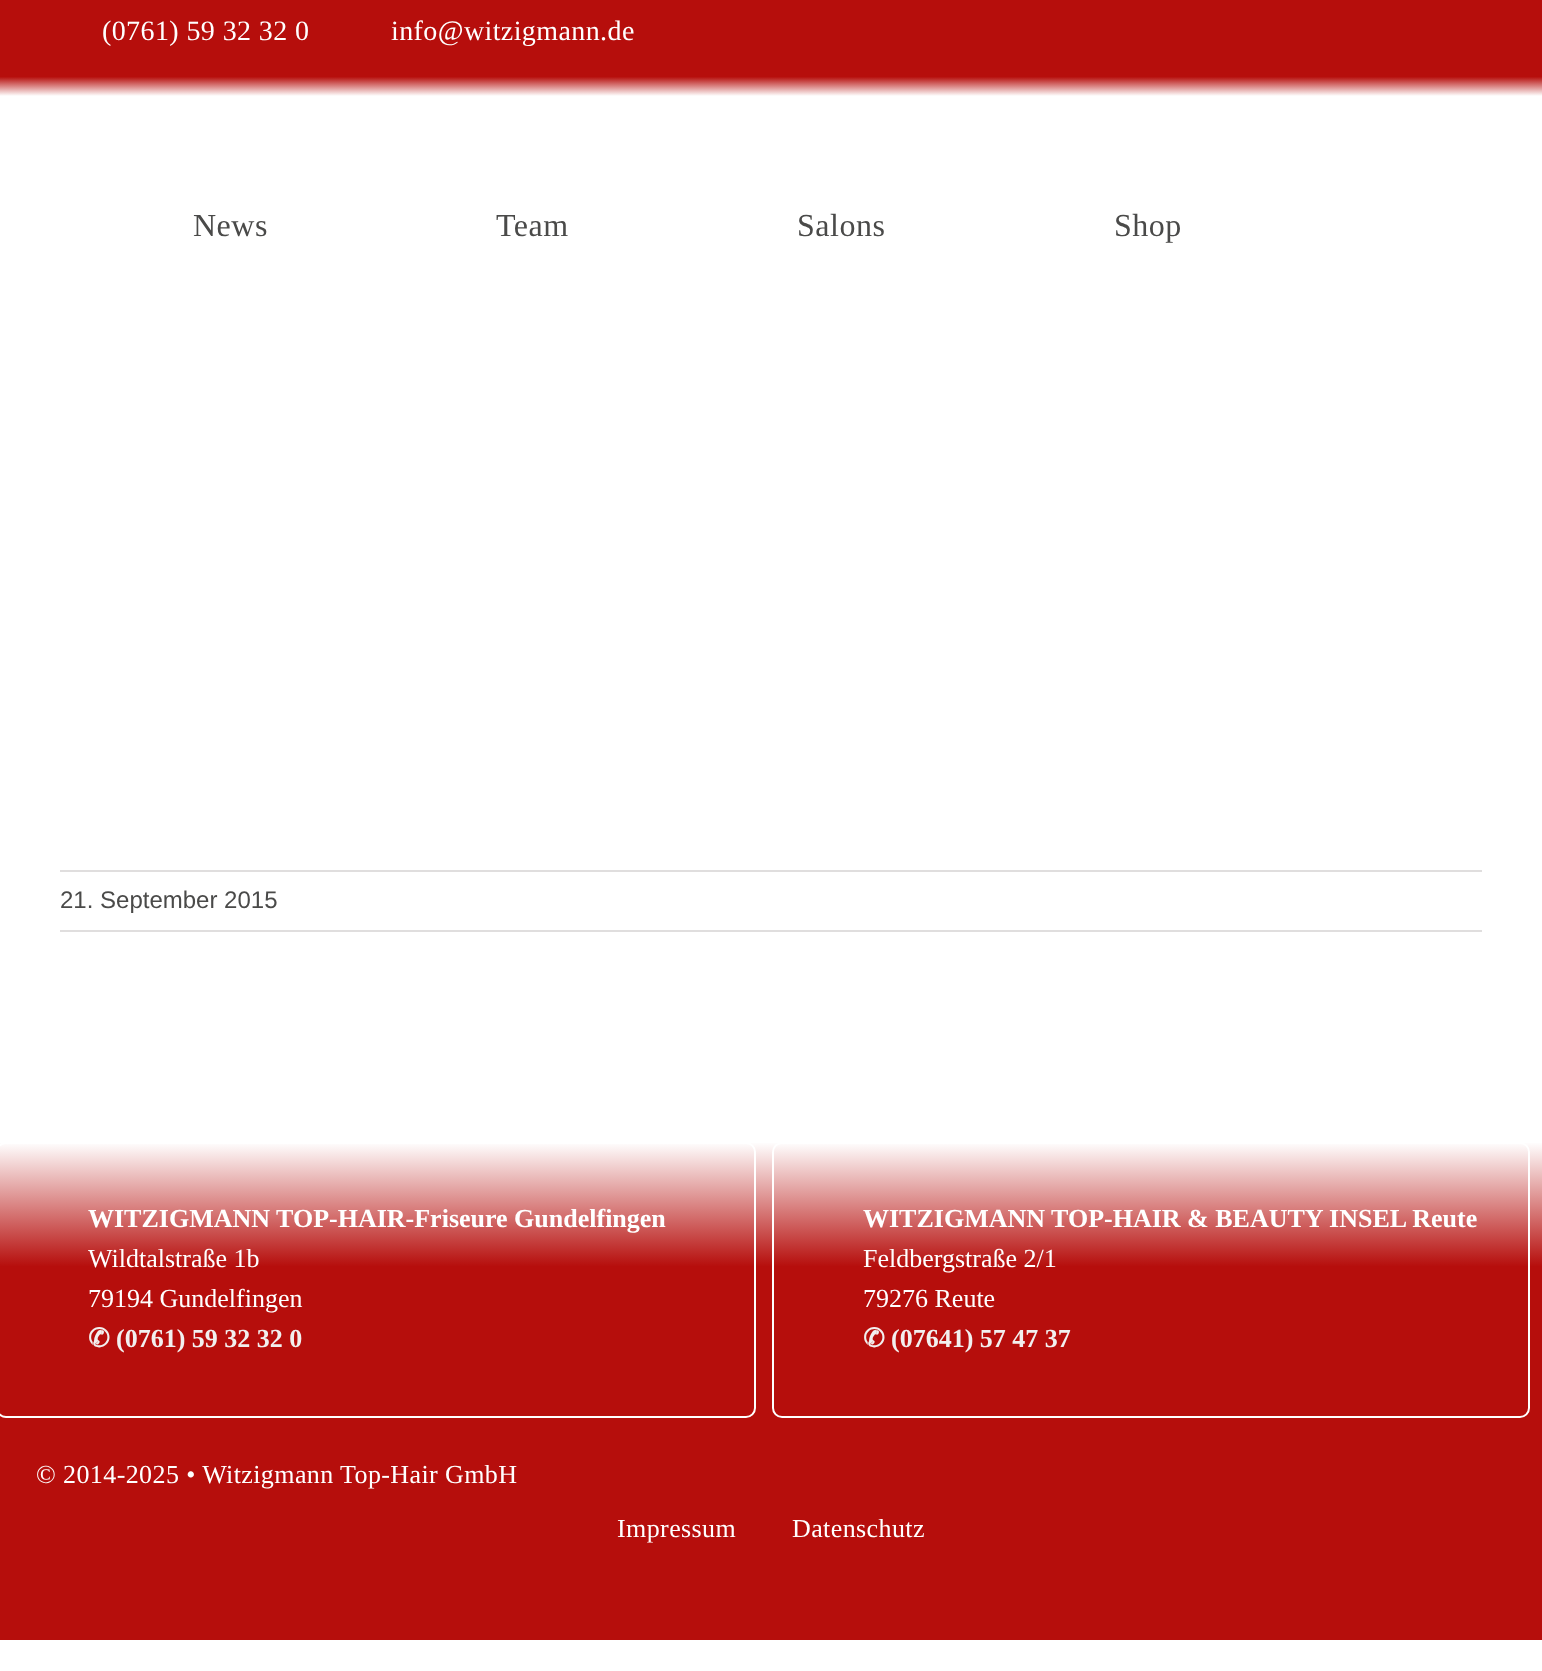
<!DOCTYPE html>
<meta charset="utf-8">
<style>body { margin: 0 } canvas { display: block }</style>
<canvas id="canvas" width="1542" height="1671"></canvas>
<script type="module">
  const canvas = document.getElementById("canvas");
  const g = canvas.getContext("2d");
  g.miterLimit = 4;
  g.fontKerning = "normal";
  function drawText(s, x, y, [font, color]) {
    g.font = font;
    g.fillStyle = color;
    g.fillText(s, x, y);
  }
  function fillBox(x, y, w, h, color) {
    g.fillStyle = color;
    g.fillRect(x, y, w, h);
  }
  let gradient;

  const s1 = ["28px Liberation Serif", "#FFFFFF"];
  const s2 = ["32px Liberation Serif", "#4A4A49"];
  const s3 = ["24px Liberation Sans", "#4A4A49"];
  const s4 = ["bold 26px Liberation Serif", "#FFFFFF"];
  const s5 = ["26px Liberation Serif", "#FFFFFF"];
  const s6 = ["bold 26px DejaVu Sans", "#F2F0EF"];
  const s7 = ["bold 26px Liberation Serif", "#F2F0EF"];

  fillBox(0, 0, 1542, 1671, "#FFFFFF");
  gradient = g.createLinearGradient(771, 0, 771, 96);
  gradient.addColorStop(0.8, "#B60E0C");
  gradient.addColorStop(1, "#FFFFFF");
  g.fillStyle = gradient;
  g.fillRect(0, 0, 1542, 96);
  g.letterSpacing = "0.4px";
  drawText("(0761) 59 32 32 0", 102, 40, s1);
  drawText("info@witzigmann.de", 391, 40, s1);
  g.letterSpacing = "0.5px";
  drawText("News", 193, 236, s2);
  drawText("Team", 496, 236, s2);
  drawText("Salons", 797, 236, s2);
  drawText("Shop", 1114, 236, s2);
  fillBox(60, 870, 1422, 2, "#E0DEDE");
  fillBox(60, 930, 1422, 2, "#E0DEDE");
  g.letterSpacing = "0px";
  drawText("21. September 2015", 60, 908, s3);
  gradient = g.createLinearGradient(771, 1142, 771, 1640);
  gradient.addColorStop(0, "#FFFFFF");
  gradient.addColorStop(0.25, "#B60E0C");
  g.fillStyle = gradient;
  g.fillRect(0, 1143, 1542, 497);
  g.beginPath();
  g.roundRect(-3, 1143, 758, 274, 9);
  g.strokeStyle = "#FFFFFF";
  g.lineWidth = 2;
  g.stroke();
  drawText("WITZIGMANN TOP-HAIR-Friseure Gundelfingen", 88, 1227, s4);
  drawText("Wildtalstraße 1b", 88, 1267, s5);
  drawText("79194 Gundelfingen", 88, 1307, s5);
  drawText("✆", 88, 1347, s6);
  drawText("(0761) 59 32 32 0", 116, 1347, s7);
  g.beginPath();
  g.roundRect(773, 1143, 756, 274, 9);
  g.stroke();
  drawText("WITZIGMANN TOP-HAIR & BEAUTY INSEL Reute", 863, 1227, s4);
  drawText("Feldbergstraße 2/1", 863, 1267, s5);
  drawText("79276 Reute", 863, 1307, s5);
  drawText("✆", 863, 1347, s6);
  drawText("(07641) 57 47 37", 891, 1347, s7);
  g.letterSpacing = "0.4px";
  drawText("© 2014-2025 • Witzigmann Top-Hair GmbH", 36, 1483, s5);
  drawText("Impressum", 617, 1537, s5);
  drawText("Datenschutz", 792, 1537, s5);
</script>
